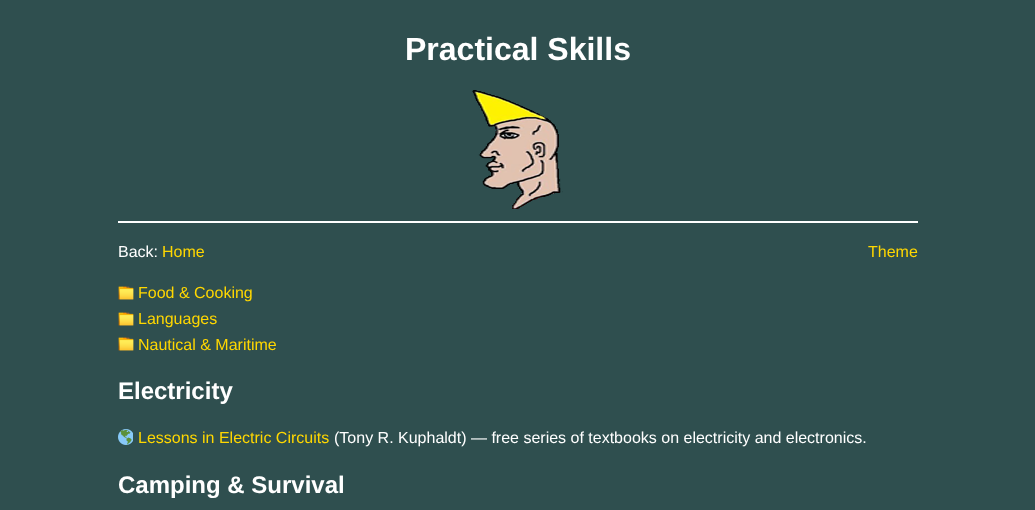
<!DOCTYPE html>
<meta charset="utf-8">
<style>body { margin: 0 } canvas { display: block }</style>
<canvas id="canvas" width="1035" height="510"></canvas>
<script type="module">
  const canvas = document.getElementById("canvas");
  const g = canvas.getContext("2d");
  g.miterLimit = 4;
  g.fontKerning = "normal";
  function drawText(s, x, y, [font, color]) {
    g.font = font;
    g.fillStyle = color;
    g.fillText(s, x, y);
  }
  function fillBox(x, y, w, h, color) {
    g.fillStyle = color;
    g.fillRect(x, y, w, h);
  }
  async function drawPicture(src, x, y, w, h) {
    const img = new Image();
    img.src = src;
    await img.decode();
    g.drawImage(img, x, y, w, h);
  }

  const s1 = ["bold 32px Liberation Sans", "#FFFFFF"];
  const s2 = ["16px Liberation Sans", "#FFFFFF"];
  const s3 = ["16px Liberation Sans", "#FFD700"];
  const s4 = ["bold 24px Liberation Sans", "#FFFFFF"];

  fillBox(0, 0, 1035, 510, "#2F4F4F");
  drawText("Practical Skills", 405, 60, s1);
  await drawPicture("pic1.png", 472, 90, 91, 119);
  fillBox(118, 221, 800, 2, "#FFFFFF");
  drawText("Back:", 118, 257, s2);
  drawText("Home", 162, 257, s3);
  drawText("Theme", 868, 257, s3);
  await drawPicture("pic2.png", 118, 286, 16, 14);
  drawText("Food & Cooking", 138, 298, s3);
  await drawPicture("pic2.png", 118, 312, 16, 14);
  drawText("Languages", 138, 324, s3);
  await drawPicture("pic2.png", 118, 337, 16, 14);
  drawText("Nautical & Maritime", 138, 350, s3);
  drawText("Electricity", 118, 399, s4);
  await drawPicture("pic3.png", 118, 429, 15, 16);
  drawText("Lessons in Electric Circuits", 138, 443, s3);
  drawText("(Tony R. Kuphaldt) — free series of textbooks on electricity and electronics.", 334, 443, s2);
  drawText("Camping & Survival", 118, 493, s4);
</script>
